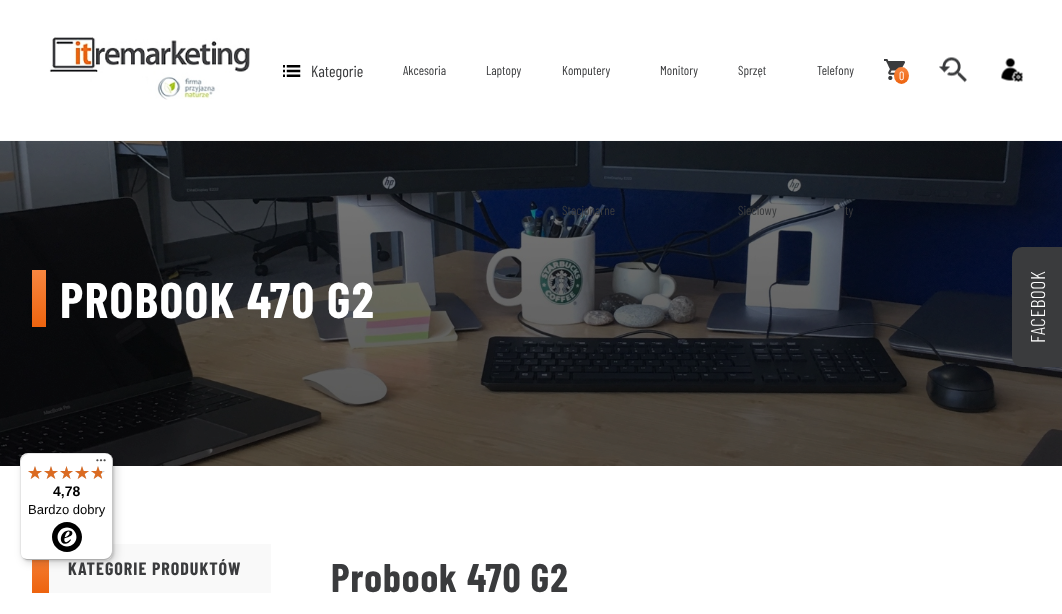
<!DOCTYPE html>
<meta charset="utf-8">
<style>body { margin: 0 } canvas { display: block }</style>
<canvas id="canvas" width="1062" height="614"></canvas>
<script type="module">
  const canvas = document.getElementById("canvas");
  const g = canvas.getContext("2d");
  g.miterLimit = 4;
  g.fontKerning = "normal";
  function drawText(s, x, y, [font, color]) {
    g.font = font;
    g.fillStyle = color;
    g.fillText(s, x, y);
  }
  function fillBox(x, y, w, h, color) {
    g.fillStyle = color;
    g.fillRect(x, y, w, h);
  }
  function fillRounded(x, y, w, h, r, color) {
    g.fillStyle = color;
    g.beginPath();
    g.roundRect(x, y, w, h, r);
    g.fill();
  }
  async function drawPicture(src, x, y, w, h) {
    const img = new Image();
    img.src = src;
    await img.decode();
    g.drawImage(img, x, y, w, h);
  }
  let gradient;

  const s1 = ["16px Barlow Condensed", "#3A3B3D"];
  const s2 = ["13px Barlow Condensed", "#3A3B3D"];
  const s3 = ["12px Barlow Condensed", "#FFFFFF"];
  const s4 = ["bold 50px Barlow Condensed", "#FFFFFF"];
  const s5 = ["bold 18px Barlow Condensed", "#3A3B3D"];
  const s6 = ["bold 14px Liberation Sans", "#000000"];
  const s7 = ["13px Liberation Sans", "#000000"];
  const s8 = ["bold 40px Barlow Condensed", "#3A3B3D"];

  fillBox(0, 0, 1062, 614, "#FFFFFF");
  fillBox(0, 140, 1062, 1, "#F7F7F7");
  await drawPicture("pic1.png", 49, 37, 201, 63);
  await drawPicture("pic2.png", 283, 65, 18, 12);
  drawText("Kategorie", 311, 77, s1);
  drawText("Akcesoria", 403, 75, s2);
  drawText("Laptopy", 486, 75, s2);
  drawText("Komputery", 562, 75, s2);
  await drawPicture("pic6.png", 0, 141, 1062, 325);
  drawText("Stacjonarne", 562, 215, s2);
  drawText("Monitory", 660, 75, s2);
  drawText("Sprzęt", 738, 75, s2);
  drawText("Sieciowy", 738, 215, s2);
  drawText("Telefony", 817, 75, s2);
  drawText("ty", 845, 215, s2);
  await drawPicture("pic3.png", 884, 59, 21, 21);
  gradient = g.createLinearGradient(902, 67, 902, 84);
  gradient.addColorStop(0, "#F88741");
  gradient.addColorStop(1, "#ED630E");
  g.fillStyle = gradient;
  g.beginPath();
  g.ellipse(901.5, 75.5, 7.5, 8.5, 0, 0, Math.PI * 2);
  g.fill();
  drawText("0", 899, 80, s3);
  await drawPicture("pic4.png", 939, 57, 28, 26);
  await drawPicture("pic5.png", 1001, 58, 22, 24);
  await drawPicture("pic7.png", 32, 270, 14, 57);
  g.letterSpacing = "1.4px";
  drawText("PROBOOK 470 G2", 60, 318, s4);
  g.fillStyle = "#3A3B3D";
  g.beginPath();
  g.roundRect(1012, 247, 50, 120, [10, 0, 0, 10]);
  g.fill();
  g.letterSpacing = "0.5px";
  g.font = "300 20px Barlow Condensed";
  g.fillStyle = "#FFFFFF";
  g.save();
  g.translate(1045, 343);
  g.rotate(-90 * Math.PI / 180);
  g.fillText("FACEBOOK", 0, 0);
  g.restore();
  fillBox(49, 544, 222, 49, "#F9F9F9");
  gradient = g.createLinearGradient(41, 544, 41, 593);
  gradient.addColorStop(0, "#F88741");
  gradient.addColorStop(1, "#ED630E");
  g.fillStyle = gradient;
  g.fillRect(32, 560, 17, 33);
  g.fillStyle = "rgba(0, 0, 0, 0.15)";
  g.filter = "blur(4px)";
  g.beginPath();
  g.roundRect(23, 456, 93, 107, 8);
  g.fill();
  g.filter = "none";
  g.filter = "blur(1px)";
  g.beginPath();
  g.roundRect(21, 454, 93, 107, 8);
  g.fill();
  g.filter = "none";
  g.letterSpacing = "1px";
  drawText("KATEGORIE PRODUKTÓW", 68, 575, s5);
  fillRounded(20, 453, 93, 107, 8, "#FFFFFF");
  g.fillStyle = "rgba(0, 0, 0, 0.1)";
  g.beginPath();
  g.moveTo(29, 454);
  g.lineTo(106, 454);
  g.bezierCurveTo(108, 454, 110, 455, 112, 457);
  g.bezierCurveTo(110, 455, 108, 453, 105, 453);
  g.lineTo(28, 453);
  g.bezierCurveTo(24, 453, 20, 457, 20, 461);
  g.lineTo(20, 552);
  g.bezierCurveTo(20, 555, 22, 557, 24, 559);
  g.bezierCurveTo(22, 557, 21, 555, 21, 553);
  g.lineTo(21, 462);
  g.bezierCurveTo(21, 458, 25, 454, 29, 454);
  g.closePath();
  g.fill();
  g.fillStyle = "rgba(0, 0, 0, 0.2)";
  g.beginPath();
  g.moveTo(21, 556);
  g.bezierCurveTo(23, 558, 25, 560, 28, 560);
  g.lineTo(105, 560);
  g.bezierCurveTo(109, 560, 113, 556, 113, 552);
  g.lineTo(113, 461);
  g.bezierCurveTo(113, 458, 111, 456, 109, 454);
  g.bezierCurveTo(111, 456, 112, 458, 112, 460);
  g.lineTo(112, 551);
  g.bezierCurveTo(112, 555, 108, 559, 104, 559);
  g.lineTo(27, 559);
  g.bezierCurveTo(25, 559, 23, 558, 21, 556);
  g.closePath();
  g.fill();
  g.fillStyle = "rgba(50, 50, 50, 0.2)";
  g.beginPath();
  g.moveTo(22, 557);
  g.bezierCurveTo(23, 559, 26, 560, 28, 560);
  g.lineTo(105, 560);
  g.bezierCurveTo(109, 560, 113, 556, 113, 552);
  g.lineTo(113, 461);
  g.bezierCurveTo(113, 459, 112, 456, 110, 455);
  g.bezierCurveTo(111, 456, 112, 458, 112, 460);
  g.lineTo(112, 551);
  g.bezierCurveTo(112, 556, 109, 559, 104, 559);
  g.lineTo(27, 559);
  g.bezierCurveTo(25, 559, 23, 558, 22, 557);
  g.closePath();
  g.fill();
  g.fillStyle = "rgba(255, 255, 255, 0.3)";
  g.beginPath();
  g.moveTo(104, 560);
  g.lineTo(105, 560);
  g.bezierCurveTo(109, 560, 113, 556, 113, 552);
  g.lineTo(113, 461);
  g.bezierCurveTo(113, 459, 112, 456, 110, 455);
  g.bezierCurveTo(111, 456, 112, 458, 112, 460);
  g.lineTo(112, 552);
  g.bezierCurveTo(112, 556, 109, 560, 104, 560);
  g.closePath();
  g.fill();
  await drawPicture("pic8.png", 96, 459, 10, 3);
  await drawPicture("pic9.png", 28, 466, 14, 13);
  await drawPicture("pic9.png", 44, 466, 14, 13);
  await drawPicture("pic10.png", 60, 466, 13, 13);
  await drawPicture("pic9.png", 75, 466, 14, 13);
  await drawPicture("pic9.png", 91, 466, 14, 13);
  await drawPicture("pic11.png", 28, 466, 14, 13);
  await drawPicture("pic11.png", 44, 466, 14, 13);
  await drawPicture("pic12.png", 60, 466, 13, 13);
  await drawPicture("pic11.png", 75, 466, 14, 13);
  await drawPicture("pic13.png", 91, 466, 11, 13);
  g.letterSpacing = "0px";
  drawText("4,78", 53, 496, s6);
  drawText("Bardzo dobry", 28, 514, s7);
  await drawPicture("pic14.png", 52, 522, 30, 30);
  g.letterSpacing = "1px";
  drawText("Probook 470 G2", 331, 592, s8);
</script>
